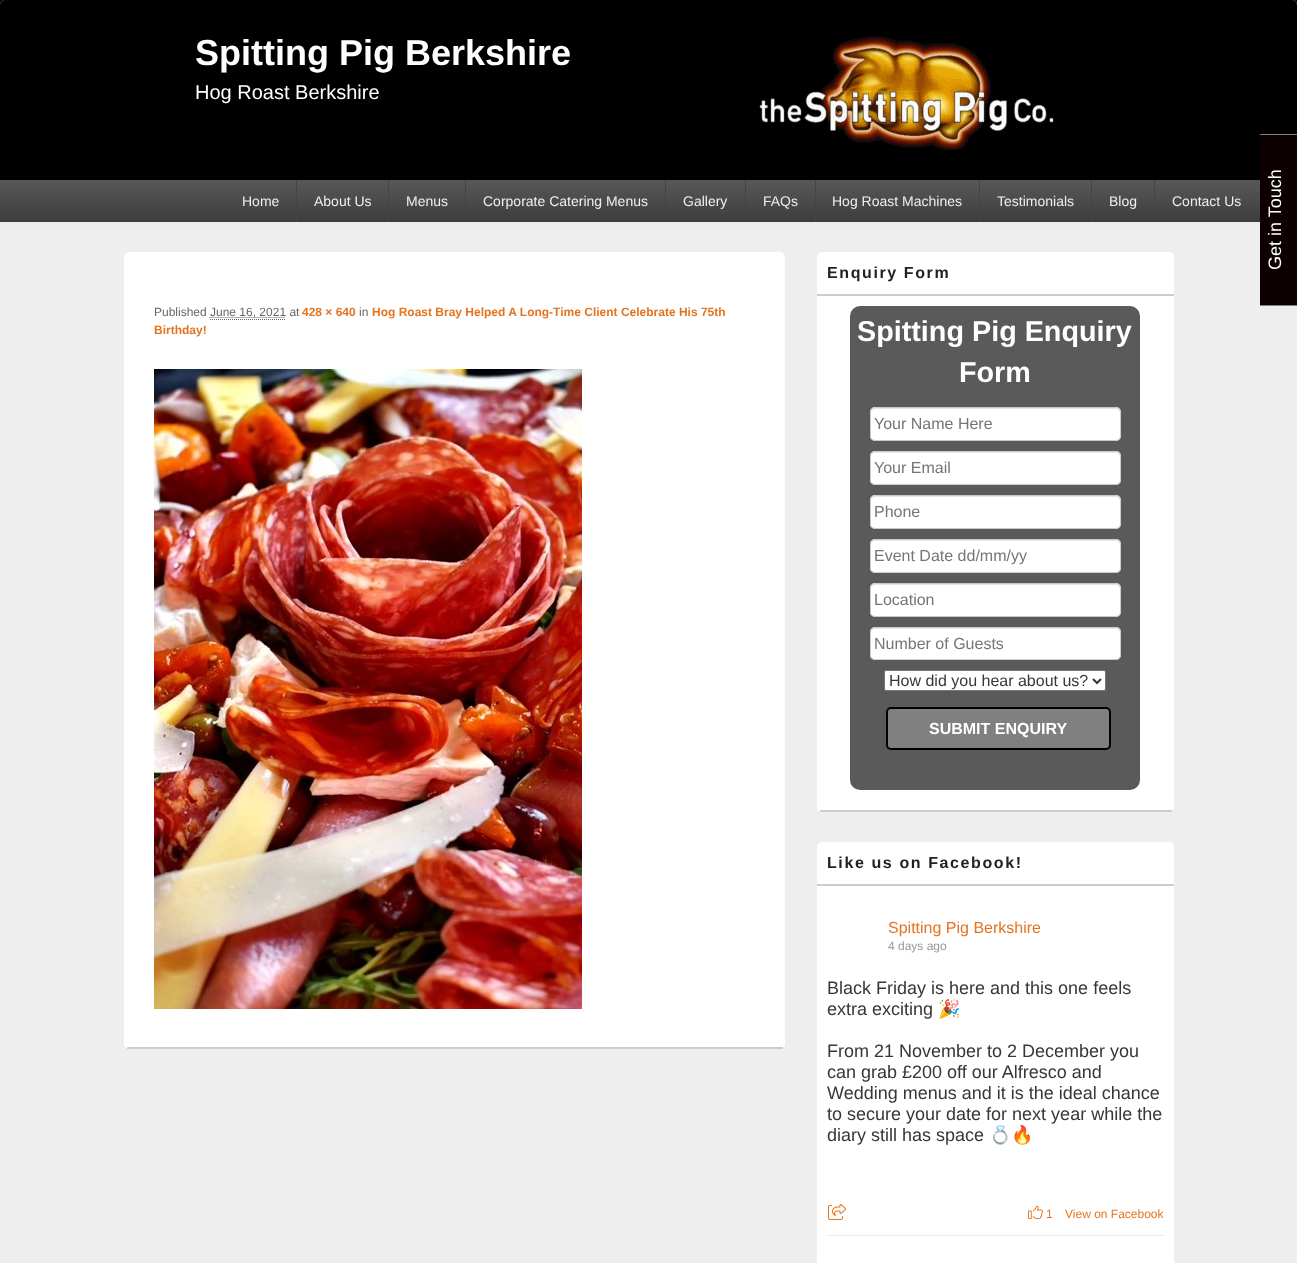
<!DOCTYPE html>
<meta charset="utf-8">
<style>body { margin: 0 } canvas { display: block }</style>
<canvas id="canvas" width="1297" height="1263"></canvas>
<script type="module">
  const canvas = document.getElementById("canvas");
  const g = canvas.getContext("2d");
  g.miterLimit = 4;
  g.fontKerning = "normal";
  function drawText(s, x, y, [font, color]) {
    g.font = font;
    g.fillStyle = color;
    g.fillText(s, x, y);
  }
  function fillBox(x, y, w, h, color) {
    g.fillStyle = color;
    g.fillRect(x, y, w, h);
  }
  function fillRounded(x, y, w, h, r, color) {
    g.fillStyle = color;
    g.beginPath();
    g.roundRect(x, y, w, h, r);
    g.fill();
  }
  async function drawPicture(src, x, y, w, h) {
    const img = new Image();
    img.src = src;
    await img.decode();
    g.drawImage(img, x, y, w, h);
  }
  let gradient;

  const s1 = ["bold 36px Liberation Sans", "#FFFFFF"];
  const s2 = ["20px Liberation Sans", "#FFFFFF"];
  const s3 = ["14px Liberation Sans", "#EEEEEE"];
  const s4 = ["12px Liberation Sans", "#666666"];
  const s5 = ["bold 12px Liberation Sans", "#E4741F"];
  const s6 = ["bold 16px Liberation Sans", "#222222"];
  const s7 = ["bold 28.75px Liberation Sans", "#FFFFFF"];
  const s8 = ["16px Liberation Sans", "#757575"];
  const s9 = ["16px Liberation Sans", "#373737"];
  const s10 = ["bold 16px Liberation Sans", "#FFFFFF"];
  const s11 = ["16px Liberation Sans", "#E4741F"];
  const s12 = ["12px Liberation Sans", "#999999"];
  const s13 = ["18px Liberation Sans", "#373737"];
  const s14 = ["18px Noto Color Emoji", "#373737"];
  const s15 = ["12px Liberation Sans", "#E4741F"];

  fillBox(0, 0, 1297, 1263, "#000000");
  fillRounded(0, 0, 1297, 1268, 5, "#EEEEEE");
  g.fillStyle = "#000000";
  g.beginPath();
  g.roundRect(0, 0, 1297, 222, [5, 5, 0, 0]);
  g.fill();
  drawText("Spitting Pig Berkshire", 195, 65, s1);
  drawText("Hog Roast Berkshire", 195, 99, s2);
  await drawPicture("pic1.png", 759, 35, 295, 115);
  gradient = g.createLinearGradient(746, 180, 746, 222);
  gradient.addColorStop(0, "#585858");
  gradient.addColorStop(1, "#3D3D3D");
  g.fillStyle = gradient;
  g.fillRect(0, 180, 1260, 42);
  drawText("Home", 242, 206, s3);
  fillBox(296, 180, 1, 42, "#444444");
  drawText("About Us", 314, 206, s3);
  fillBox(388, 180, 1, 42, "#444444");
  drawText("Menus", 406, 206, s3);
  fillBox(465, 180, 1, 42, "#444444");
  drawText("Corporate Catering Menus", 483, 206, s3);
  fillBox(665, 180, 1, 42, "#444444");
  drawText("Gallery", 683, 206, s3);
  fillBox(745, 180, 1, 42, "#444444");
  drawText("FAQs", 763, 206, s3);
  fillBox(815, 180, 1, 42, "#444444");
  drawText("Hog Roast Machines", 832, 206, s3);
  fillBox(979, 180, 1, 42, "#444444");
  drawText("Testimonials", 997, 206, s3);
  fillBox(1091, 180, 1, 42, "#444444");
  drawText("Blog", 1109, 206, s3);
  fillBox(1154, 180, 1, 42, "#444444");
  drawText("Contact Us", 1172, 206, s3);
  fillRounded(124, 252, 661, 797, 5, "#FFFFFF");
  fillBox(127, 1047, 656, 2, "#CCCCCC");
  drawText("Published", 154, 316, s4);
  g.beginPath();
  g.moveTo(209.5, 317.5);
  g.lineTo(285.5, 317.5);
  g.strokeStyle = "#666666";
  g.setLineDash([1, 1]);
  g.stroke();
  drawText("June 16, 2021 at", 210, 316, s4);
  g.beginPath();
  g.moveTo(210, 319.5);
  g.lineTo(286, 319.5);
  g.stroke();
  drawText("428 × 640", 302, 316, s5);
  drawText("in", 359, 316, s4);
  drawText("Hog Roast Bray Helped A Long-Time Client Celebrate His 75th", 372, 316, s5);
  drawText("Birthday!", 154, 334, s5);
  await drawPicture("pic2.png", 154, 369, 428, 640);
  fillRounded(817, 252, 357, 560, 5, "#FFFFFF");
  fillBox(820, 810, 352, 2, "#CCCCCC");
  fillBox(817, 294, 357, 2, "#CCCCCC");
  g.letterSpacing = "1.6px";
  drawText("Enquiry Form", 827, 278, s6);
  fillRounded(850, 306, 290, 484, 10, "#5A5A5A");
  g.letterSpacing = "0px";
  drawText("Spitting Pig Enquiry", 857, 341, s7);
  drawText("Form", 959, 382, s7);
  fillRounded(870, 407, 251, 34, 5, "#FFFFFF");
  g.fillStyle = "#E6E6E6";
  g.beginPath();
  g.moveTo(875, 409);
  g.lineTo(1116, 409);
  g.bezierCurveTo(1118, 409, 1120, 411, 1120, 413);
  g.lineTo(1120, 412);
  g.bezierCurveTo(1120, 410, 1118, 408, 1116, 408);
  g.lineTo(875, 408);
  g.bezierCurveTo(873, 408, 871, 410, 871, 412);
  g.lineTo(871, 413);
  g.bezierCurveTo(871, 411, 873, 409, 875, 409);
  g.closePath();
  g.fill();
  g.beginPath();
  g.roundRect(870.5, 407.5, 250, 33, 4.5);
  g.strokeStyle = "#CCCCCC";
  g.setLineDash([]);
  g.stroke();
  drawText("Your Name Here", 874, 429, s8);
  fillRounded(870, 451, 251, 34, 5, "#FFFFFF");
  g.fillStyle = "#E6E6E6";
  g.beginPath();
  g.moveTo(875, 453);
  g.lineTo(1116, 453);
  g.bezierCurveTo(1118, 453, 1120, 455, 1120, 457);
  g.lineTo(1120, 456);
  g.bezierCurveTo(1120, 454, 1118, 452, 1116, 452);
  g.lineTo(875, 452);
  g.bezierCurveTo(873, 452, 871, 454, 871, 456);
  g.lineTo(871, 457);
  g.bezierCurveTo(871, 455, 873, 453, 875, 453);
  g.closePath();
  g.fill();
  g.beginPath();
  g.roundRect(870.5, 451.5, 250, 33, 4.5);
  g.stroke();
  drawText("Your Email", 874, 473, s8);
  fillRounded(870, 495, 251, 34, 5, "#FFFFFF");
  g.fillStyle = "#E6E6E6";
  g.beginPath();
  g.moveTo(875, 497);
  g.lineTo(1116, 497);
  g.bezierCurveTo(1118, 497, 1120, 499, 1120, 501);
  g.lineTo(1120, 500);
  g.bezierCurveTo(1120, 498, 1118, 496, 1116, 496);
  g.lineTo(875, 496);
  g.bezierCurveTo(873, 496, 871, 498, 871, 500);
  g.lineTo(871, 501);
  g.bezierCurveTo(871, 499, 873, 497, 875, 497);
  g.closePath();
  g.fill();
  g.beginPath();
  g.roundRect(870.5, 495.5, 250, 33, 4.5);
  g.stroke();
  drawText("Phone", 874, 517, s8);
  fillRounded(870, 539, 251, 34, 5, "#FFFFFF");
  g.fillStyle = "#E6E6E6";
  g.beginPath();
  g.moveTo(875, 541);
  g.lineTo(1116, 541);
  g.bezierCurveTo(1118, 541, 1120, 543, 1120, 545);
  g.lineTo(1120, 544);
  g.bezierCurveTo(1120, 542, 1118, 540, 1116, 540);
  g.lineTo(875, 540);
  g.bezierCurveTo(873, 540, 871, 542, 871, 544);
  g.lineTo(871, 545);
  g.bezierCurveTo(871, 543, 873, 541, 875, 541);
  g.closePath();
  g.fill();
  g.beginPath();
  g.roundRect(870.5, 539.5, 250, 33, 4.5);
  g.stroke();
  drawText("Event Date dd/mm/yy", 874, 561, s8);
  fillRounded(870, 583, 251, 34, 5, "#FFFFFF");
  g.fillStyle = "#E6E6E6";
  g.beginPath();
  g.moveTo(875, 585);
  g.lineTo(1116, 585);
  g.bezierCurveTo(1118, 585, 1120, 587, 1120, 589);
  g.lineTo(1120, 588);
  g.bezierCurveTo(1120, 586, 1118, 584, 1116, 584);
  g.lineTo(875, 584);
  g.bezierCurveTo(873, 584, 871, 586, 871, 588);
  g.lineTo(871, 589);
  g.bezierCurveTo(871, 587, 873, 585, 875, 585);
  g.closePath();
  g.fill();
  g.beginPath();
  g.roundRect(870.5, 583.5, 250, 33, 4.5);
  g.stroke();
  drawText("Location", 874, 605, s8);
  fillRounded(870, 627, 251, 33, 5, "#FFFFFF");
  g.fillStyle = "#E6E6E6";
  g.beginPath();
  g.moveTo(875, 629);
  g.lineTo(1116, 629);
  g.bezierCurveTo(1118, 629, 1120, 631, 1120, 633);
  g.lineTo(1120, 632);
  g.bezierCurveTo(1120, 630, 1118, 628, 1116, 628);
  g.lineTo(875, 628);
  g.bezierCurveTo(873, 628, 871, 630, 871, 632);
  g.lineTo(871, 633);
  g.bezierCurveTo(871, 631, 873, 629, 875, 629);
  g.closePath();
  g.fill();
  g.beginPath();
  g.roundRect(870.5, 627.5, 250, 32, 4.5);
  g.stroke();
  drawText("Number of Guests", 874, 649, s8);
  g.fillStyle = "#FFFFFF";
  g.beginPath();
  g.roundRect(884.5, 670.5, 221, 20, 1.5);
  g.fill();
  g.strokeStyle = "#767676";
  g.stroke();
  g.beginPath();
  g.moveTo(1093, 679);
  g.lineTo(1097, 683);
  g.lineTo(1101, 679);
  g.strokeStyle = "#373737";
  g.lineWidth = 2;
  g.stroke();
  drawText("How did you hear about us?", 889, 686, s9);
  g.fillStyle = "#808080";
  g.beginPath();
  g.roundRect(887, 708, 223, 41, 4);
  g.fill();
  g.strokeStyle = "#000000";
  g.stroke();
  drawText("SUBMIT ENQUIRY", 929, 734, s10);
  fillRounded(817, 842, 357, 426, 5, "#FFFFFF");
  fillBox(817, 884, 357, 2, "#CCCCCC");
  g.letterSpacing = "1.6px";
  drawText("Like us on Facebook!", 827, 868, s6);
  fillBox(827, 1235, 337, 1, "#EAEAEA");
  g.letterSpacing = "0px";
  drawText("Spitting Pig Berkshire", 888, 933, s11);
  drawText("4 days ago", 888, 950, s12);
  drawText("Black Friday is here and this one feels", 827, 994, s13);
  drawText("extra exciting", 827, 1015, s13);
  drawText("🎉", 938, 1015, s14);
  drawText("From 21 November to 2 December you", 827, 1057, s13);
  drawText("can grab £200 off our Alfresco and", 827, 1078, s13);
  drawText("Wedding menus and it is the ideal chance", 827, 1099, s13);
  drawText("to secure your date for next year while the", 827, 1120, s13);
  drawText("diary still has space", 827, 1141, s13);
  drawText("💍🔥", 989, 1141, s14);
  await drawPicture("pic3.png", 828, 1204, 18, 16);
  await drawPicture("pic4.png", 1028, 1205, 15, 14);
  drawText("1", 1046, 1218, s15);
  drawText("View on Facebook", 1065, 1218, s15);
  fillBox(1260, 135, 37, 170, "#0C0000");
  fillBox(1260, 134, 37, 1, "#7F7F7F");
  fillBox(1260, 305, 37, 1, "#7F7F7F");
  g.font = "18px Liberation Sans";
  g.fillStyle = "#FFFFFF";
  g.save();
  g.translate(1281, 270);
  g.rotate(-90 * Math.PI / 180);
  g.fillText("Get in Touch", 0, 0);
  g.restore();
</script>
